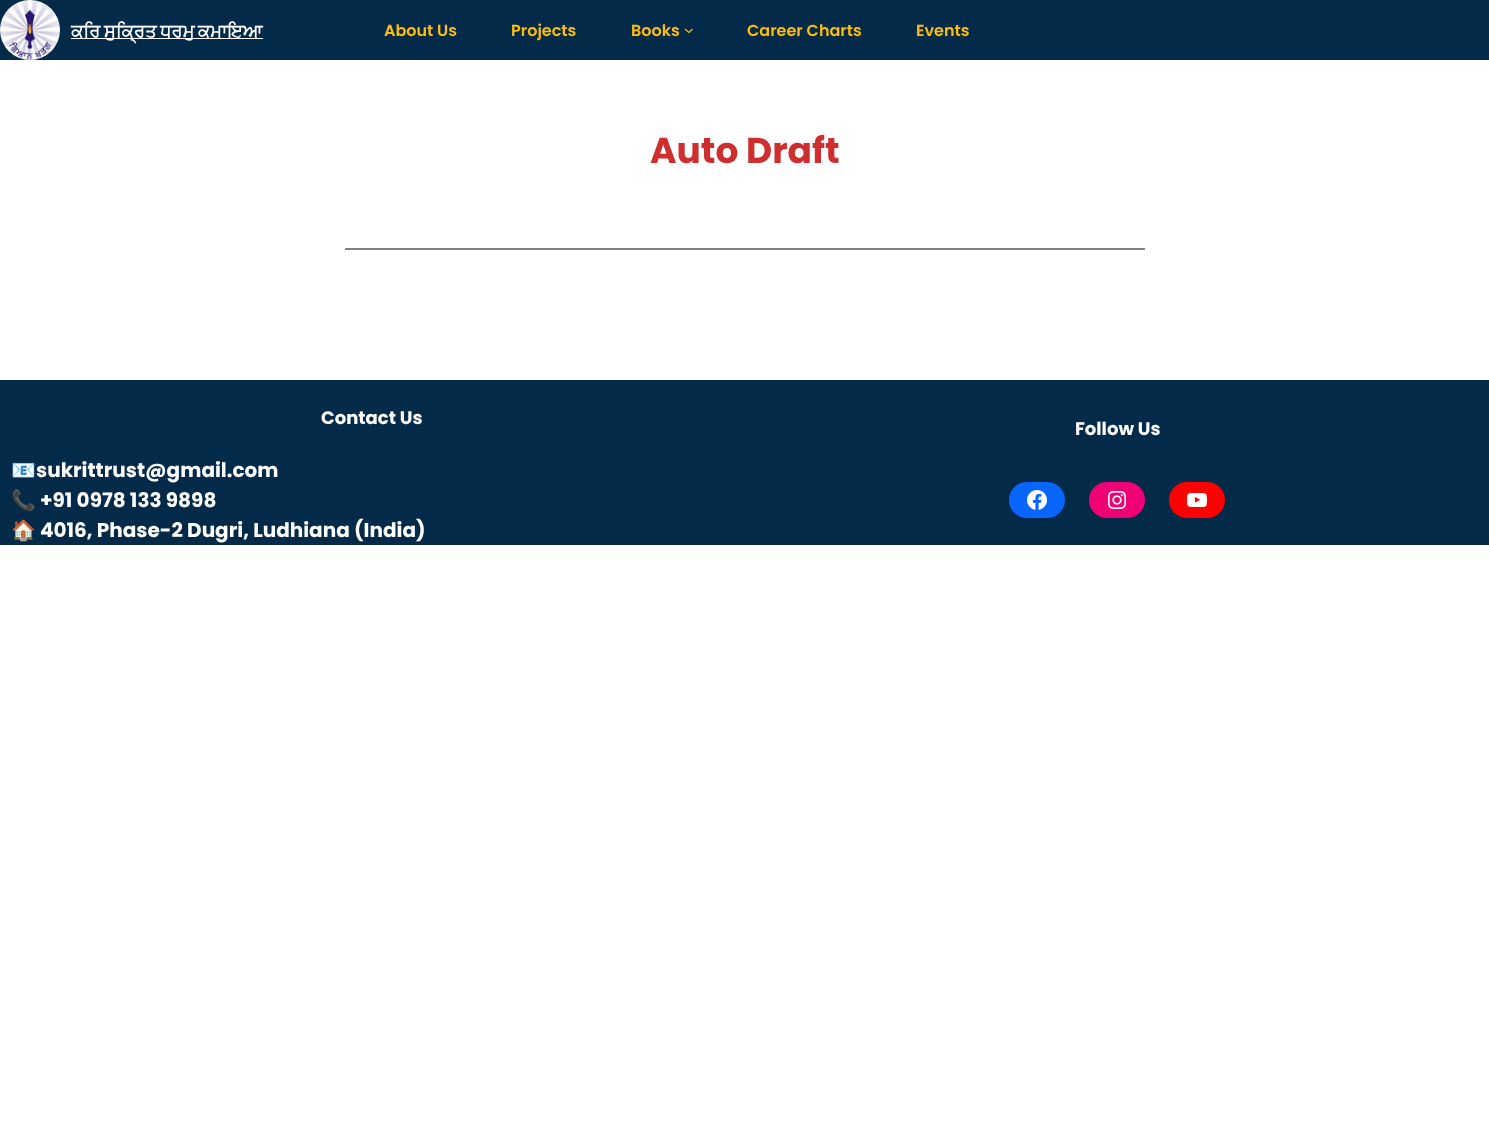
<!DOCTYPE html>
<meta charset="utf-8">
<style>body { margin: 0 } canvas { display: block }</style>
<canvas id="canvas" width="1489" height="1142"></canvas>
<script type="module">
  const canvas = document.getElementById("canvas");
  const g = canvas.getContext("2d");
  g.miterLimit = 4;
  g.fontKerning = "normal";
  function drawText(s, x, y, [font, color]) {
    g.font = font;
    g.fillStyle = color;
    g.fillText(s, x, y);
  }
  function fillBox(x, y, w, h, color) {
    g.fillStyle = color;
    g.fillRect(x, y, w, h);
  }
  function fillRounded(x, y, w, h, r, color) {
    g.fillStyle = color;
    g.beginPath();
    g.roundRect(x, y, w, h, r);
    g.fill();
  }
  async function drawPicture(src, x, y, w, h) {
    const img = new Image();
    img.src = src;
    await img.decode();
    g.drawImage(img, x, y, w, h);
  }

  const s1 = ["bold 18px FreeSans", "#FFFFFF"];
  const s2 = ["600 16px Poppins", "#FFBE0A"];
  const s3 = ["bold 36px Poppins", "#CF2E2E"];
  const s4 = ["bold 18px Poppins", "#FFFFFF"];
  const s5 = ["bold 20px Noto Color Emoji", "#FFFFFF"];
  const s6 = ["bold 20px Poppins", "#FFFFFF"];

  fillBox(0, 0, 1489, 1142, "#FFFFFF");
  fillBox(0, 0, 1489, 60, "#042A49");
  await drawPicture("pic1.png", 0, 0, 60, 60);
  fillBox(71, 38, 192, 1, "#FFFFFF");
  g.wordSpacing = "-1px";
  drawText("ਕਰਿ ਸੁਕ੍ਰਿਤ ਧਰਮੁ ਕਮਾਇਆ", 71, 37, s1);
  g.wordSpacing = "0px";
  drawText("About Us", 384, 36, s2);
  drawText("Projects", 511, 36, s2);
  drawText("Books", 631, 36, s2);
  g.beginPath();
  g.moveTo(685, 29);
  g.lineTo(689, 32.5);
  g.lineTo(692.5, 29);
  g.strokeStyle = "#FFBE0A";
  g.lineWidth = 1.2;
  g.stroke();
  drawText("Career Charts", 747, 36, s2);
  drawText("Events", 916, 36, s2);
  drawText("Auto Draft", 650, 163, s3);
  fillBox(345, 248, 800, 2, "#808080");
  fillBox(0, 380, 1489, 165, "#042A49");
  drawText("Contact Us", 321, 424, s4);
  drawText("📧", 11, 477, s5);
  drawText("sukrittrust@gmail.com", 36, 477, s6);
  drawText("📞", 11, 507, s5);
  drawText("+91 0978 133 9898", 40, 507, s6);
  drawText("🏠", 11, 537, s5);
  drawText("4016, Phase-2 Dugri, Ludhiana (India)", 40, 537, s6);
  drawText("Follow Us", 1075, 435, s4);
  fillRounded(1009, 482, 56, 36, 18, "#0866FF");
  await drawPicture("pic2.png", 1027, 490, 20, 20);
  fillRounded(1089, 482, 56, 36, 18, "#F00075");
  await drawPicture("pic3.png", 1108, 491, 18, 18);
  fillRounded(1169, 482, 56, 36, 18, "#FF0000");
  await drawPicture("pic4.png", 1187, 493, 20, 14);
</script>
